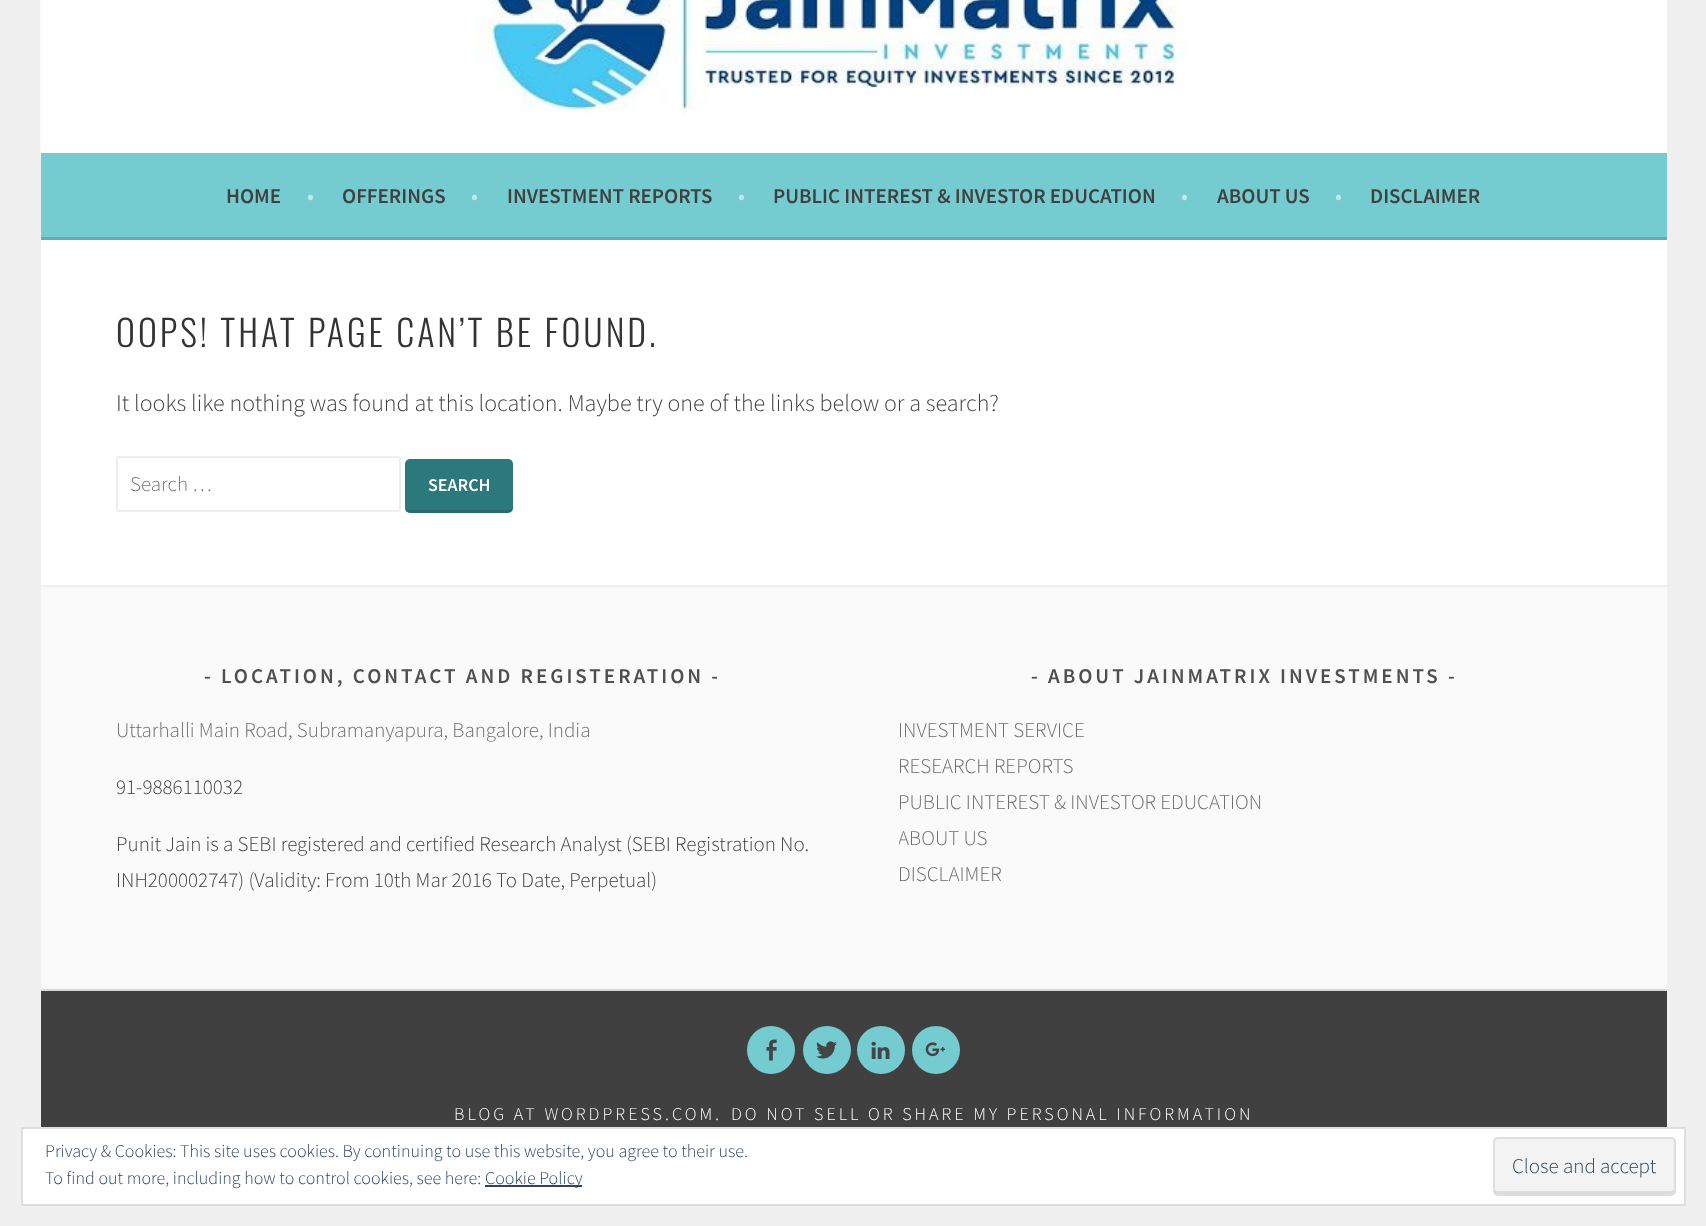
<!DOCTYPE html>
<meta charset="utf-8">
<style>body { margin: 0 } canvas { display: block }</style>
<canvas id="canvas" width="1706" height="1226"></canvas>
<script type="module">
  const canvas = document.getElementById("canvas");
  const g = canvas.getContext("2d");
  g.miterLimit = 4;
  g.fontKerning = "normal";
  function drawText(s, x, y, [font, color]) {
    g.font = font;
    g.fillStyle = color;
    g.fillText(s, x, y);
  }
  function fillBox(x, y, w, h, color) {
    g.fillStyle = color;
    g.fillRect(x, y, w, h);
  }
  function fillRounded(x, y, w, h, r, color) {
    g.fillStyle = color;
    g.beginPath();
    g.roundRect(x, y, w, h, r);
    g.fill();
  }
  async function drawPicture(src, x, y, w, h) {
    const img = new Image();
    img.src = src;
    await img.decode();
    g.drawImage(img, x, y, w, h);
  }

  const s1 = ["600 21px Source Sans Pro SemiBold", "#404040"];
  const s2 = ["600 21px Source Sans Pro SemiBold", "#C1E8EA"];
  const s3 = ["300 36px Oswald", "#333333"];
  const s4 = ["300 24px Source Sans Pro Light", "#404040"];
  const s5 = ["300 21px Source Sans Pro Light", "#757575"];
  const s6 = ["600 18px Source Sans Pro SemiBold", "#FFFFFF"];
  const s7 = ["600 21px Source Sans Pro SemiBold", "#4F4F4F"];
  const s8 = ["300 21px Source Sans Pro Light", "#6D6D6D"];
  const s9 = ["300 21px Source Sans Pro Light", "#404040"];
  const s10 = ["300 18px Source Sans Pro Light", "#FFFFFF"];
  const s11 = ["300 18px Source Sans Pro Light", "#2E4467"];
  const s12 = ["300 21px Source Sans Pro Light", "#2E4453"];

  fillBox(0, 0, 1706, 1226, "#F0F0F0");
  fillBox(1186, 0, 481, 153, "#FFFFFF");
  await drawPicture("pic1.png", 40, 0, 1146, 153);
  fillBox(41, 153, 1626, 84, "#74CCD1");
  fillBox(41, 237, 1626, 3, "#63ADB2");
  drawText("HOME", 226, 203, s1);
  drawText("•", 307, 203, s2);
  drawText("OFFERINGS", 342, 203, s1);
  drawText("•", 471, 203, s2);
  drawText("INVESTMENT REPORTS", 507, 203, s1);
  drawText("•", 738, 203, s2);
  drawText("PUBLIC INTEREST & INVESTOR EDUCATION", 773, 203, s1);
  drawText("•", 1181, 203, s2);
  drawText("ABOUT US", 1217, 203, s1);
  drawText("•", 1335, 203, s2);
  drawText("DISCLAIMER", 1370, 203, s1);
  fillBox(41, 240, 1626, 345, "#FFFFFF");
  g.letterSpacing = "3px";
  drawText("OOPS! THAT PAGE CAN’T BE FOUND.", 116, 347, s3);
  g.letterSpacing = "0px";
  drawText("It looks like nothing was found at this location. Maybe try one of the links below or a search?", 116, 411, s4);
  g.beginPath();
  g.roundRect(117, 457, 283, 54, 2);
  g.strokeStyle = "#EEEEEE";
  g.lineWidth = 2;
  g.stroke();
  drawText("Search …", 130, 491, s5);
  fillRounded(405, 459, 108, 54, 5, "#2B797C");
  g.fillStyle = "rgba(0, 0, 0, 0.1)";
  g.beginPath();
  g.moveTo(405, 506);
  g.lineTo(405, 508);
  g.bezierCurveTo(405, 511, 407, 513, 410, 513);
  g.lineTo(508, 513);
  g.bezierCurveTo(511, 513, 513, 511, 513, 508);
  g.lineTo(513, 506);
  g.bezierCurveTo(513, 508, 511, 510, 508, 510);
  g.lineTo(410, 510);
  g.bezierCurveTo(407, 510, 405, 508, 405, 506);
  g.closePath();
  g.fill();
  drawText("SEARCH", 428, 491, s6);
  fillBox(41, 587, 1626, 402, "#FAFAFA");
  g.letterSpacing = "3px";
  drawText("- LOCATION, CONTACT AND REGISTERATION -", 204, 683, s7);
  g.letterSpacing = "0px";
  drawText("Uttarhalli Main Road, Subramanyapura, Bangalore, India", 116, 737, s8);
  drawText("91-9886110032", 116, 794, s9);
  drawText("Punit Jain is a SEBI registered and certified Research Analyst (SEBI Registration No.", 116, 851, s9);
  drawText("INH200002747) (Validity: From 10th Mar 2016 To Date, Perpetual)", 116, 887, s9);
  g.letterSpacing = "3px";
  drawText("- ABOUT JAINMATRIX INVESTMENTS -", 1031, 683, s7);
  g.letterSpacing = "0px";
  drawText("INVESTMENT SERVICE", 898, 737, s8);
  drawText("RESEARCH REPORTS", 898, 773, s8);
  drawText("PUBLIC INTEREST & INVESTOR EDUCATION", 898, 809, s8);
  g.save();
  g.beginPath();
  g.rect(899, 659, 693, 288);
  g.clip();
  drawText("ABOUT US", 898, 845, s8);
  g.restore();
  drawText("DISCLAIMER", 898, 881, s8);
  fillBox(41, 991, 1626, 136, "#404040");
  fillBox(41, 989, 1626, 2, "#D9D9D9");
  g.fillStyle = "#74CCD1";
  g.beginPath();
  g.arc(771, 1050, 24, 0, Math.PI * 2);
  g.fill();
  await drawPicture("pic2.png", 766, 1039, 11, 22);
  g.beginPath();
  g.arc(827, 1050, 24, 0, Math.PI * 2);
  g.fill();
  await drawPicture("pic3.png", 816, 1041, 21, 18);
  g.beginPath();
  g.arc(881, 1050, 24, 0, Math.PI * 2);
  g.fill();
  await drawPicture("pic4.png", 871, 1041, 19, 18);
  g.beginPath();
  g.arc(936, 1050, 24, 0, Math.PI * 2);
  g.fill();
  await drawPicture("pic5.png", 925, 1042, 20, 15);
  g.letterSpacing = "3px";
  drawText("BLOG AT WORDPRESS.COM.", 454, 1120, s10);
  drawText("DO NOT SELL OR SHARE MY PERSONAL INFORMATION", 731, 1120, s10);
  g.beginPath();
  g.rect(22, 1128, 1663, 77);
  g.fill();
  g.strokeStyle = "#DEDEDE";
  g.stroke();
  g.letterSpacing = "0px";
  drawText("Privacy & Cookies: This site uses cookies. By continuing to use this website, you agree to their use.", 45, 1157, s11);
  drawText("To find out more, including how to control cookies, see here:", 45, 1184, s11);
  fillBox(485, 1185, 97, 2, "#2E4467");
  drawText("Cookie Policy", 485, 1184, s11);
  fillRounded(1493, 1137, 183, 59, 5, "#F3F3F3");
  g.fillStyle = "#DBDBDB";
  g.beginPath();
  g.moveTo(1494, 1188);
  g.lineTo(1494, 1191);
  g.bezierCurveTo(1494, 1193, 1495, 1194, 1497, 1194);
  g.lineTo(1671, 1194);
  g.bezierCurveTo(1673, 1194, 1674, 1193, 1674, 1191);
  g.lineTo(1674, 1188);
  g.bezierCurveTo(1674, 1190, 1673, 1191, 1671, 1191);
  g.lineTo(1496, 1191);
  g.lineTo(1495, 1190);
  g.closePath();
  g.fill();
  g.beginPath();
  g.roundRect(1494, 1138, 181, 57, 4);
  g.stroke();
  drawText("Close and accept", 1512, 1173, s12);
</script>
